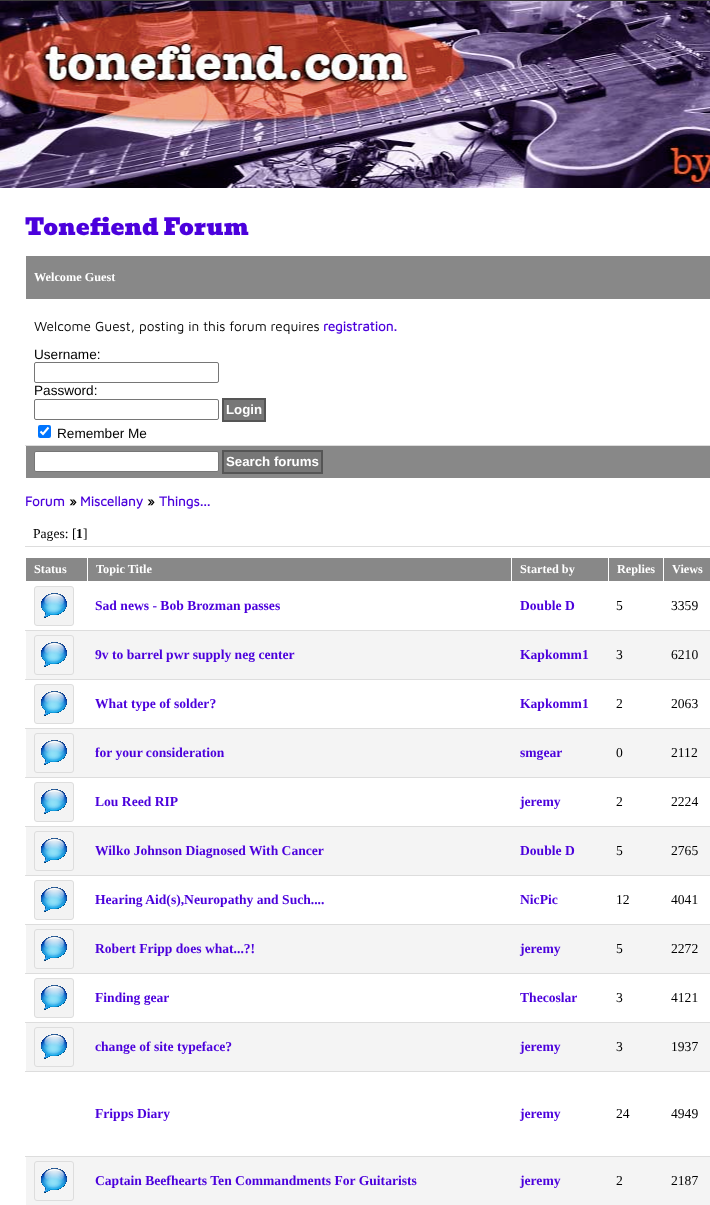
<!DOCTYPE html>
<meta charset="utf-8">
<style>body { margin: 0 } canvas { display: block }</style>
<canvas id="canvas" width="710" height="1205"></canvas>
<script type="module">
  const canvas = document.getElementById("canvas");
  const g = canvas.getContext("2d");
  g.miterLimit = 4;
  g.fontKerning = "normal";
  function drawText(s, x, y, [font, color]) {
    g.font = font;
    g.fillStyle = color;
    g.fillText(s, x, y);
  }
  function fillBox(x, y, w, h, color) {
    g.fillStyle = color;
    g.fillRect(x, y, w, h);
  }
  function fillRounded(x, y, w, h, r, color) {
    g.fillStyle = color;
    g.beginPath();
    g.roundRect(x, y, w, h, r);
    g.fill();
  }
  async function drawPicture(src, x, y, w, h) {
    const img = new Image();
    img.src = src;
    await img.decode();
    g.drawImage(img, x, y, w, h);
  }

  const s1 = ["23px Bevan", "#4B00DC"];
  const s2 = ["bold 12.25px Liberation Serif", "#FFFFFF"];
  const s3 = ["13.6px Maven Pro", "#000000"];
  const s4 = ["bold 13.6px Maven Pro", "#4B00DC"];
  const s5 = ["13.6px Liberation Sans", "#000000"];
  const s6 = ["bold 13.25px Liberation Sans", "#FFFFFF"];
  const s7 = ["bold 13.6px Maven Pro", "#000000"];
  const s8 = ["13.6px Liberation Serif", "#000000"];
  const s9 = ["bold 13.6px Liberation Serif", "#000000"];
  const s10 = ["bold 13.6px Liberation Serif", "#4B00DC"];

  fillBox(0, 0, 710, 1205, "#FFFFFF");
  await drawPicture("pic1.png", 0, 0, 710, 188);
  drawText("Tonefiend Forum", 25, 235, s1);
  fillBox(26, 256, 684, 43, "#888888");
  drawText("Welcome Guest", 34, 281, s2);
  fillBox(25, 445, 685, 1, "#DDDDDD");
  drawText("Welcome Guest, posting in this forum requires", 34, 331, s3);
  drawText("registration.", 323, 331, s4);
  drawText("Username:", 34, 359, s5);
  g.beginPath();
  g.roundRect(34.5, 362.5, 184, 20, 1.5);
  g.strokeStyle = "#767676";
  g.stroke();
  drawText("Password:", 34, 395, s5);
  g.beginPath();
  g.roundRect(34.5, 399.5, 184, 20, 1.5);
  g.stroke();
  g.fillStyle = "#777777";
  g.beginPath();
  g.rect(223, 399, 42, 22);
  g.fill();
  g.strokeStyle = "#555555";
  g.lineWidth = 2;
  g.stroke();
  drawText("Login", 226, 414, s6);
  fillRounded(38, 425, 13, 13, 2, "#0075FF");
  g.beginPath();
  g.moveTo(40.5, 431.5);
  g.lineTo(43, 434);
  g.lineTo(48.5, 427.5);
  g.strokeStyle = "#FFFFFF";
  g.lineWidth = 2.1;
  g.stroke();
  drawText("Remember Me", 57, 438, s5);
  fillBox(26, 446, 684, 32, "#888888");
  g.fillStyle = "#FFFFFF";
  g.beginPath();
  g.roundRect(34.5, 451.5, 184, 20, 1.5);
  g.fill();
  g.strokeStyle = "#767676";
  g.lineWidth = 1;
  g.stroke();
  g.fillStyle = "#777777";
  g.beginPath();
  g.rect(223, 451, 99, 22);
  g.fill();
  g.strokeStyle = "#555555";
  g.lineWidth = 2;
  g.stroke();
  drawText("Search forums", 226, 466, s6);
  drawText("Forum", 25, 506, s4);
  drawText("»", 69, 506, s7);
  drawText("Miscellany", 80, 506, s4);
  drawText("»", 147, 506, s7);
  drawText("Things...", 159, 506, s4);
  fillBox(25, 546, 685, 1, "#DDDDDD");
  drawText("Pages: [", 33, 538, s8);
  drawText("1", 76, 538, s9);
  drawText("]", 83, 538, s8);
  fillBox(26, 558, 61, 23, "#888888");
  drawText("Status", 34, 573, s2);
  fillBox(88, 558, 423, 23, "#888888");
  drawText("Topic Title", 96, 573, s2);
  fillBox(512, 558, 96, 23, "#888888");
  drawText("Started by", 520, 573, s2);
  fillBox(609, 558, 54, 23, "#888888");
  drawText("Replies", 617, 573, s2);
  fillBox(664, 558, 46, 23, "#888888");
  drawText("Views", 672, 573, s2);
  g.fillStyle = "#F3F3F3";
  g.beginPath();
  g.roundRect(34.5, 586.5, 39, 39, 2.5);
  g.fill();
  g.strokeStyle = "#DDDDDD";
  g.lineWidth = 1;
  g.stroke();
  await drawPicture("pic2.png", 41, 593, 26, 25);
  drawText("Sad news - Bob Brozman passes", 95, 610, s10);
  drawText("Double D", 520, 610, s10);
  drawText("5", 616, 610, s8);
  fillBox(25, 630, 685, 1, "#DDDDDD");
  drawText("3359", 671, 610, s8);
  fillBox(26, 631, 684, 48, "#F4F4F4");
  g.beginPath();
  g.roundRect(34.5, 635.5, 39, 39, 2.5);
  g.stroke();
  await drawPicture("pic3.png", 41, 642, 26, 25);
  drawText("9v to barrel pwr supply neg center", 95, 659, s10);
  drawText("Kapkomm1", 520, 659, s10);
  drawText("3", 616, 659, s8);
  fillBox(25, 679, 685, 1, "#DDDDDD");
  drawText("6210", 671, 659, s8);
  g.fillStyle = "#F3F3F3";
  g.beginPath();
  g.roundRect(34.5, 684.5, 39, 39, 2.5);
  g.fill();
  g.stroke();
  await drawPicture("pic2.png", 41, 691, 26, 25);
  drawText("What type of solder?", 95, 708, s10);
  drawText("Kapkomm1", 520, 708, s10);
  drawText("2", 616, 708, s8);
  fillBox(25, 728, 685, 1, "#DDDDDD");
  drawText("2063", 671, 708, s8);
  fillBox(26, 729, 684, 48, "#F4F4F4");
  g.beginPath();
  g.roundRect(34.5, 733.5, 39, 39, 2.5);
  g.stroke();
  await drawPicture("pic3.png", 41, 740, 26, 25);
  drawText("for your consideration", 95, 757, s10);
  drawText("smgear", 520, 757, s10);
  drawText("0", 616, 757, s8);
  fillBox(25, 777, 685, 1, "#DDDDDD");
  drawText("2112", 671, 757, s8);
  g.fillStyle = "#F3F3F3";
  g.beginPath();
  g.roundRect(34.5, 782.5, 39, 39, 2.5);
  g.fill();
  g.stroke();
  await drawPicture("pic2.png", 41, 789, 26, 25);
  drawText("Lou Reed RIP", 95, 806, s10);
  drawText("jeremy", 520, 806, s10);
  drawText("2", 616, 806, s8);
  fillBox(25, 826, 685, 1, "#DDDDDD");
  drawText("2224", 671, 806, s8);
  fillBox(26, 827, 684, 48, "#F4F4F4");
  g.beginPath();
  g.roundRect(34.5, 831.5, 39, 39, 2.5);
  g.stroke();
  await drawPicture("pic3.png", 41, 838, 26, 25);
  drawText("Wilko Johnson Diagnosed With Cancer", 95, 855, s10);
  drawText("Double D", 520, 855, s10);
  drawText("5", 616, 855, s8);
  fillBox(25, 875, 685, 1, "#DDDDDD");
  drawText("2765", 671, 855, s8);
  g.fillStyle = "#F3F3F3";
  g.beginPath();
  g.roundRect(34.5, 880.5, 39, 39, 2.5);
  g.fill();
  g.stroke();
  await drawPicture("pic2.png", 41, 887, 26, 25);
  drawText("Hearing Aid(s),Neuropathy and Such....", 95, 904, s10);
  drawText("NicPic", 520, 904, s10);
  drawText("12", 616, 904, s8);
  fillBox(25, 924, 685, 1, "#DDDDDD");
  drawText("4041", 671, 904, s8);
  fillBox(26, 925, 684, 48, "#F4F4F4");
  g.beginPath();
  g.roundRect(34.5, 929.5, 39, 39, 2.5);
  g.stroke();
  await drawPicture("pic3.png", 41, 936, 26, 25);
  drawText("Robert Fripp does what...?!", 95, 953, s10);
  drawText("jeremy", 520, 953, s10);
  drawText("5", 616, 953, s8);
  fillBox(25, 973, 685, 1, "#DDDDDD");
  drawText("2272", 671, 953, s8);
  g.fillStyle = "#F3F3F3";
  g.beginPath();
  g.roundRect(34.5, 978.5, 39, 39, 2.5);
  g.fill();
  g.stroke();
  await drawPicture("pic2.png", 41, 985, 26, 25);
  drawText("Finding gear", 95, 1002, s10);
  drawText("Thecoslar", 520, 1002, s10);
  drawText("3", 616, 1002, s8);
  fillBox(25, 1022, 685, 1, "#DDDDDD");
  drawText("4121", 671, 1002, s8);
  fillBox(26, 1023, 684, 48, "#F4F4F4");
  g.beginPath();
  g.roundRect(34.5, 1027.5, 39, 39, 2.5);
  g.stroke();
  await drawPicture("pic3.png", 41, 1034, 26, 25);
  drawText("change of site typeface?", 95, 1051, s10);
  drawText("jeremy", 520, 1051, s10);
  drawText("3", 616, 1051, s8);
  fillBox(25, 1071, 685, 1, "#DDDDDD");
  drawText("1937", 671, 1051, s8);
  drawText("Fripps Diary", 95, 1118, s10);
  drawText("jeremy", 520, 1118, s10);
  drawText("24", 616, 1118, s8);
  fillBox(25, 1156, 685, 1, "#DDDDDD");
  drawText("4949", 671, 1118, s8);
  fillBox(26, 1157, 684, 48, "#F4F4F4");
  g.beginPath();
  g.roundRect(34.5, 1161.5, 39, 39, 2.5);
  g.stroke();
  await drawPicture("pic3.png", 41, 1168, 26, 25);
  drawText("Captain Beefhearts Ten Commandments For Guitarists", 95, 1185, s10);
  drawText("jeremy", 520, 1185, s10);
  drawText("2", 616, 1185, s8);
  drawText("2187", 671, 1185, s8);
</script>
